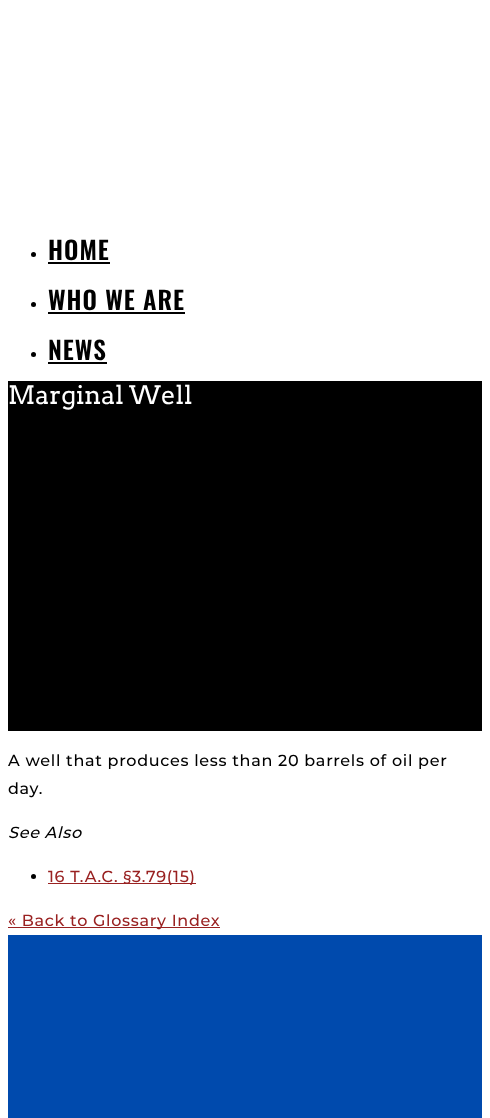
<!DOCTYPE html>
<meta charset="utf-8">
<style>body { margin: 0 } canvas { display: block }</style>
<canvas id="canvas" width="490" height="1118"></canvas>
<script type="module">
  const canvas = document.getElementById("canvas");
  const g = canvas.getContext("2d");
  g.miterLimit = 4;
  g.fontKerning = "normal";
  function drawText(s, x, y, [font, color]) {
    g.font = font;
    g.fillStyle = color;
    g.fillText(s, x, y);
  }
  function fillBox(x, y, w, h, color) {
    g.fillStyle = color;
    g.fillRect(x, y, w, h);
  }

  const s1 = ["600 25px Oswald", "#000000"];
  const s2 = ["25.5px Arvo", "#FFFFFF"];
  const s3 = ["500 16px Montserrat", "#000000"];
  const s4 = ["italic 500 16px Montserrat", "#000000"];
  const s5 = ["500 16px Montserrat", "#992121"];

  fillBox(0, 0, 490, 1118, "#FFFFFF");
  g.fillStyle = "#000000";
  g.beginPath();
  g.arc(33.5, 254.5, 2.5, 0, Math.PI * 2);
  g.fill();
  g.letterSpacing = "1px";
  drawText("HOME", 48, 260, s1);
  fillBox(48, 262, 62, 2, "#000000");
  g.beginPath();
  g.arc(33.5, 304.5, 2.5, 0, Math.PI * 2);
  g.fill();
  drawText("WHO WE ARE", 48, 310, s1);
  fillBox(48, 312, 137, 2, "#000000");
  g.beginPath();
  g.arc(33.5, 354.5, 2.5, 0, Math.PI * 2);
  g.fill();
  drawText("NEWS", 48, 360, s1);
  fillBox(48, 362, 59, 2, "#000000");
  fillBox(8, 381, 474, 350, "#000000");
  g.letterSpacing = "0px";
  drawText("Marginal Well", 8, 404, s2);
  g.letterSpacing = "0.7px";
  drawText("A well that produces less than 20 barrels of oil per", 8, 766, s3);
  drawText("day.", 8, 794, s3);
  drawText("See Also", 8, 838, s4);
  g.beginPath();
  g.arc(33.5, 876.5, 2.5, 0, Math.PI * 2);
  g.fill();
  fillBox(48, 883, 148, 1, "#992121");
  drawText("16 T.A.C. §3.79(15)", 48, 882, s5);
  fillBox(8, 927, 212, 1, "#992121");
  drawText("« Back to Glossary Index", 8, 926, s5);
  fillBox(8, 935, 474, 183, "#004AAD");
</script>
